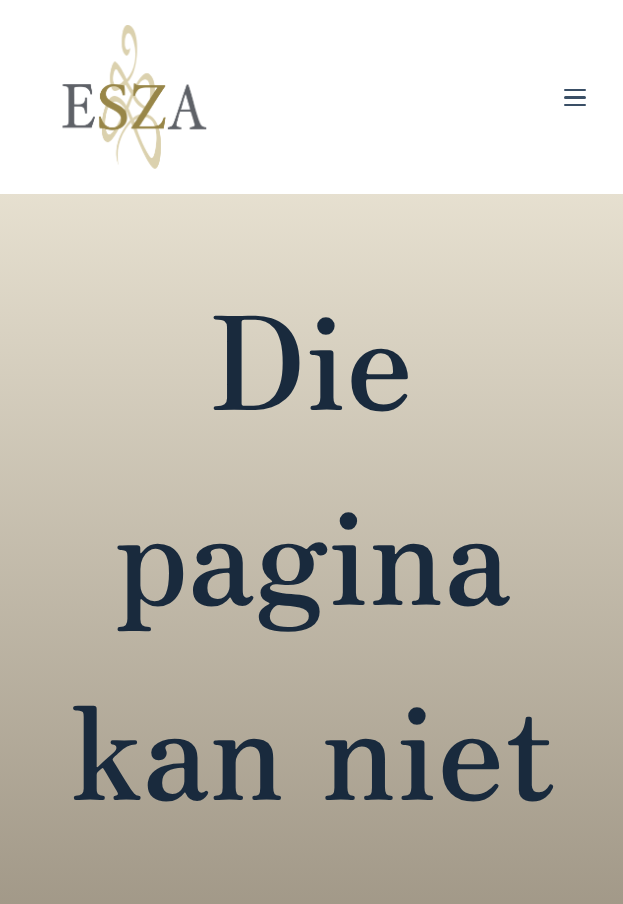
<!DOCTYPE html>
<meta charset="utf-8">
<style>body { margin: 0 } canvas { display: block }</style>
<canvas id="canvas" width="623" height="904"></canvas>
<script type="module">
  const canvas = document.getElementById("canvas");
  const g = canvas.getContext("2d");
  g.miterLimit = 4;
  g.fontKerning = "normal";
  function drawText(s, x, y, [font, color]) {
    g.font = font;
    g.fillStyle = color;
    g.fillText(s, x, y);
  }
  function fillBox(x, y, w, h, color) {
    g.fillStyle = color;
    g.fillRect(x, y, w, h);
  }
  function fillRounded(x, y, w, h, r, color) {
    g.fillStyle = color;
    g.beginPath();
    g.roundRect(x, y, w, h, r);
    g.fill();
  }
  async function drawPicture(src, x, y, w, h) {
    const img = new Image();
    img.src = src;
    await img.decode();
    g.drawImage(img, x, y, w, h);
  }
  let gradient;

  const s1 = ["bold 130px Zen Old Mincho", "#192A3D"];

  fillBox(0, 0, 623, 904, "#FFFFFF");
  gradient = g.createLinearGradient(312, 0, 312, 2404);
  gradient.addColorStop(0.05, "#EDE7D7");
  gradient.addColorStop(0.57, "#766B5A");
  g.fillStyle = gradient;
  g.fillRect(0, 194, 623, 710);
  await drawPicture("pic1.png", 62, 25, 145, 144);
  fillRounded(564, 89, 22, 2, 1, "#3A4F66");
  fillRounded(564, 96, 22, 3, 1.5, "#3A4F66");
  fillRounded(564, 104, 22, 2, 1, "#3A4F66");
  drawText("Die", 210, 410, s1);
  drawText("pagina", 114, 605, s1);
  drawText("kan niet", 69, 800, s1);
</script>
